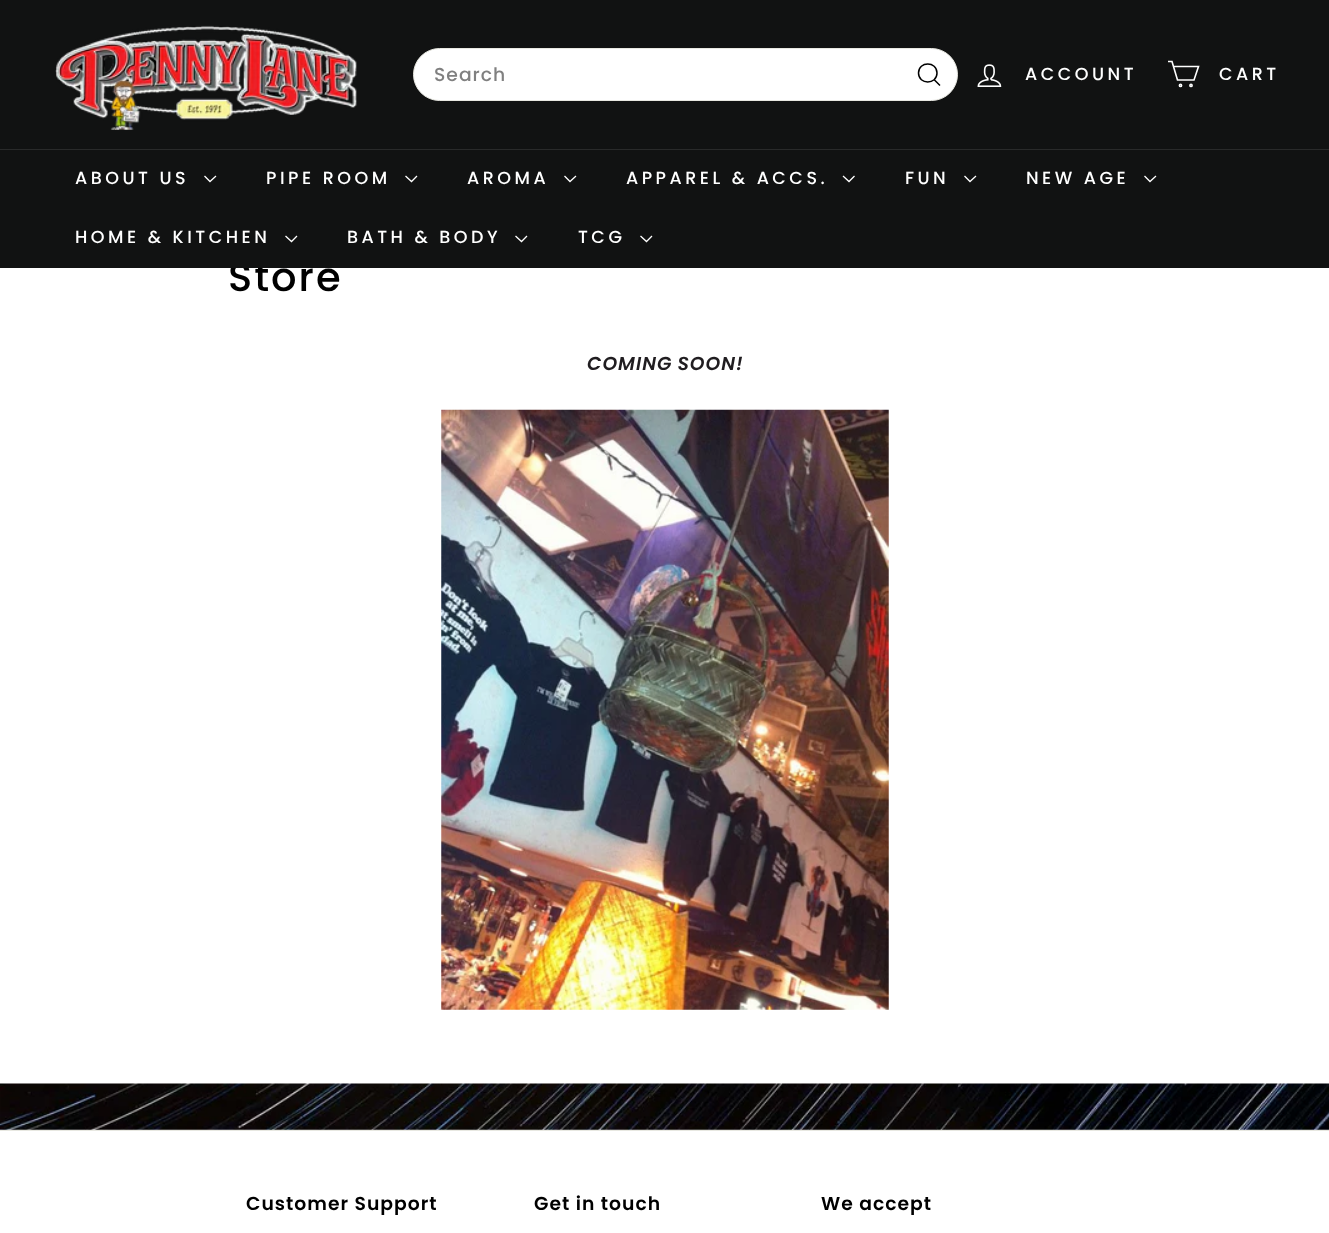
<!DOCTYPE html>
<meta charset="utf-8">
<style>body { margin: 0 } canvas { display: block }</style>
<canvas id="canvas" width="1329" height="1233"></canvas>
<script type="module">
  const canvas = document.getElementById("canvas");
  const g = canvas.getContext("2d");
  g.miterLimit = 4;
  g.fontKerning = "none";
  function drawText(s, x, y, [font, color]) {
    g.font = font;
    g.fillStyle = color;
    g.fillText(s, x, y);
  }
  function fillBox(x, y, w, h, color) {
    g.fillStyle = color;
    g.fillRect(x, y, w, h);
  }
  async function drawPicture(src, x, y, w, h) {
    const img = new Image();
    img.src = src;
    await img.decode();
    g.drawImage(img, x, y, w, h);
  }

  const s1 = ["500 18.75px Poppins", "#808080"];
  const s2 = ["500 17.5px Poppins", "#FFFFFF"];
  const s3 = ["500 40px Poppins", "#000000"];
  const s4 = ["italic 600 18.75px Poppins", "#201D20"];
  const s5 = ["600 18.75px Poppins", "#000000"];

  fillBox(0, 0, 1329, 1233, "#FFFFFF");
  fillBox(0, 0, 1329, 149, "#111212");
  await drawPicture("pic1.png", 55, 25, 302, 105);
  g.fillStyle = "#FFFFFF";
  g.beginPath();
  g.roundRect(413.5, 48.5, 544, 52, 26);
  g.fill();
  g.strokeStyle = "#E8E8E1";
  g.stroke();
  g.letterSpacing = "1px";
  drawText("Search", 434, 81, s1);
  g.beginPath();
  g.moveTo(937, 73);
  g.bezierCurveTo(937, 85, 918.5, 85, 918.5, 73);
  g.bezierCurveTo(918.5, 61, 937, 61, 937, 73);
  g.moveTo(940, 85.5);
  g.lineTo(934, 79.5);
  g.strokeStyle = "#000000";
  g.lineWidth = 1.5;
  g.stroke();
  await drawPicture("pic2.png", 977, 64, 25, 23);
  g.letterSpacing = "3.5px";
  drawText("ACCOUNT", 1025, 80, s2);
  g.beginPath();
  g.moveTo(1173.5, 66.5);
  g.lineTo(1198.5, 66.5);
  g.lineTo(1194, 80);
  g.lineTo(1177.5, 80);
  g.lineTo(1172, 61.5);
  g.lineTo(1168, 61.5);
  g.strokeStyle = "#FFFFFF";
  g.lineWidth = 1.6;
  g.stroke();
  g.beginPath();
  g.arc(1180.5, 85.4, 1.1, 0, Math.PI * 2);
  g.stroke();
  g.beginPath();
  g.arc(1191, 85.4, 1.1, 0, Math.PI * 2);
  g.stroke();
  drawText("CART", 1219, 80, s2);
  g.letterSpacing = "2px";
  drawText("Store", 228, 291, s3);
  fillBox(0, 150, 1329, 118, "#111212");
  fillBox(0, 149, 1329, 1, "#292A2A");
  g.letterSpacing = "3.5px";
  drawText("ABOUT US", 75, 184, s2);
  g.beginPath();
  g.moveTo(204.5, 176);
  g.lineTo(210, 181.5);
  g.lineTo(216, 176);
  g.lineWidth = 1.3;
  g.stroke();
  drawText("PIPE ROOM", 266, 184, s2);
  g.beginPath();
  g.moveTo(405.5, 176);
  g.lineTo(411.5, 181.5);
  g.lineTo(417, 176);
  g.stroke();
  drawText("AROMA", 467, 184, s2);
  g.beginPath();
  g.moveTo(564.5, 176);
  g.lineTo(570, 181.5);
  g.lineTo(576, 176);
  g.stroke();
  drawText("APPAREL & ACCS.", 626, 184, s2);
  g.beginPath();
  g.moveTo(843, 176);
  g.lineTo(849, 181.5);
  g.lineTo(854.5, 176);
  g.stroke();
  drawText("FUN", 905, 184, s2);
  g.beginPath();
  g.moveTo(964.5, 176);
  g.lineTo(970, 181.5);
  g.lineTo(976, 176);
  g.stroke();
  drawText("NEW AGE", 1026, 184, s2);
  g.beginPath();
  g.moveTo(1144.5, 176);
  g.lineTo(1150, 181.5);
  g.lineTo(1156, 176);
  g.stroke();
  drawText("HOME & KITCHEN", 75, 243, s2);
  g.beginPath();
  g.moveTo(285.5, 236);
  g.lineTo(291.5, 241.5);
  g.lineTo(297, 236);
  g.stroke();
  drawText("BATH & BODY", 347, 243, s2);
  g.beginPath();
  g.moveTo(515.5, 236);
  g.lineTo(521.5, 241.5);
  g.lineTo(527, 236);
  g.stroke();
  drawText("TCG", 578, 243, s2);
  g.beginPath();
  g.moveTo(640.5, 236);
  g.lineTo(646.5, 241.5);
  g.lineTo(652, 236);
  g.stroke();
  g.letterSpacing = "1px";
  g.wordSpacing = "-1px";
  drawText("COMING SOON!", 587, 370, s4);
  await drawPicture("pic3.png", 441, 409, 448, 601);
  await drawPicture("pic4.png", 0, 1083, 1329, 47);
  fillBox(0, 1130, 1329, 1, "#E8E8E1");
  g.wordSpacing = "0px";
  drawText("Customer Support", 246, 1210, s5);
  drawText("Get in touch", 534, 1210, s5);
  drawText("We accept", 821, 1210, s5);
</script>
